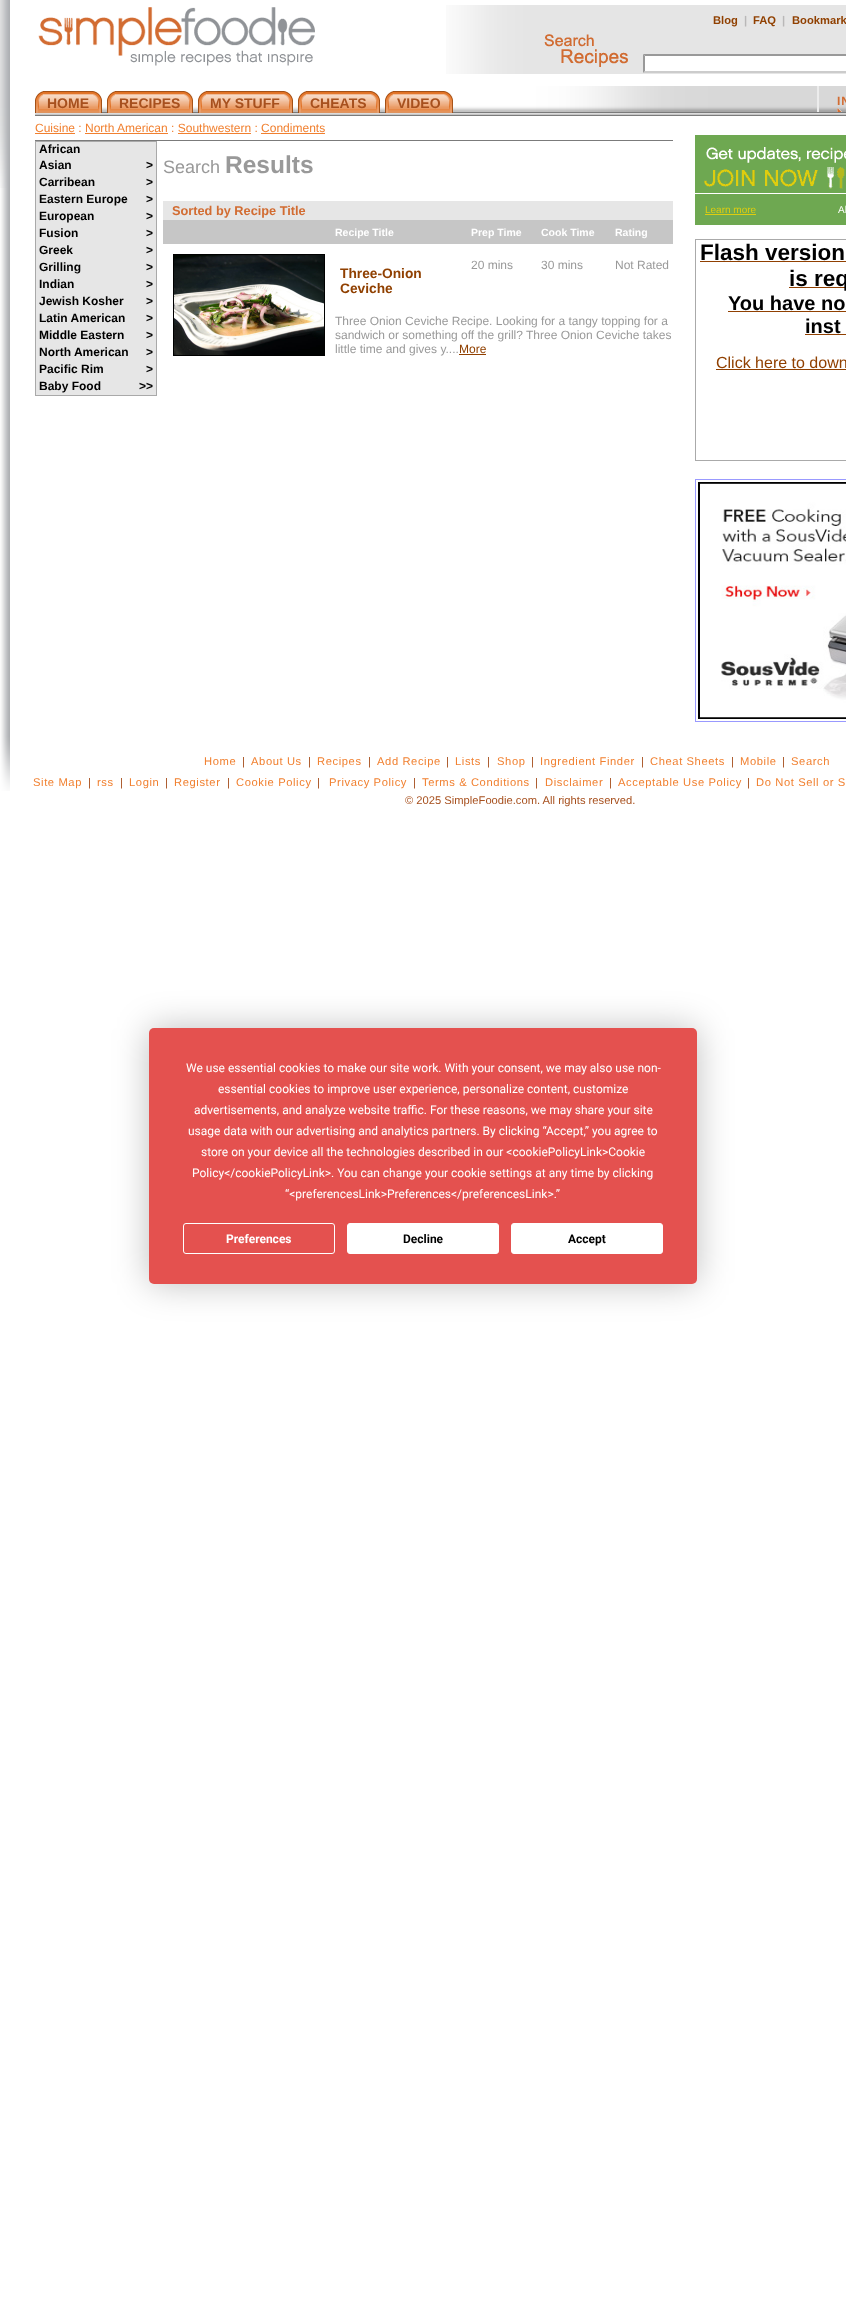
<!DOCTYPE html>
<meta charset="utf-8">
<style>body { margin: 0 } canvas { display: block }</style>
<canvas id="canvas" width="846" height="2312"></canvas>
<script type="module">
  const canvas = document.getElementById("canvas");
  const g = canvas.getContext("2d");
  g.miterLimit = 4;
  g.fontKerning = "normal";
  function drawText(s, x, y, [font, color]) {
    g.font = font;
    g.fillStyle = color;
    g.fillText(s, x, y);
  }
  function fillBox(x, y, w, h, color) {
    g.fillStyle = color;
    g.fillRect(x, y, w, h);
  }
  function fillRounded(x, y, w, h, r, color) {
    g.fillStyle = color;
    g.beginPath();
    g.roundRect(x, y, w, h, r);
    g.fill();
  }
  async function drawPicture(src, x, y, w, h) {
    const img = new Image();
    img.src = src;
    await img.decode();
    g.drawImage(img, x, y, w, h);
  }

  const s1 = ["bold 11.2px Liberation Sans", "#904001"];
  const s2 = ["bold 11.2px Liberation Sans", "#B9B8B8"];
  const s3 = ["bold 14px Liberation Sans", "#A7501E"];
  const s4 = ["bold 12px Liberation Sans", "#D26C32"];
  const s5 = ["12px Liberation Sans", "#F18030"];
  const s6 = ["bold 12px Liberation Sans", "#000000"];
  const s7 = ["18px Liberation Sans", "#999999"];
  const s8 = ["bold 24.5px Liberation Sans", "#999999"];
  const s9 = ["bold 12.75px Liberation Sans", "#D26C32"];
  const s10 = ["bold 10.5px Liberation Sans", "#FFFFFF"];
  const s11 = ["12px Liberation Sans", "#999999"];
  const s12 = ["bold 13.75px Liberation Sans", "#904001"];
  const s13 = ["12px Liberation Sans", "#904001"];
  const s14 = ["10px Liberation Sans", "#DECD0F"];
  const s15 = ["10px Liberation Sans", "#FFFFFF"];
  const s16 = ["bold 22.5px Liberation Sans", "#000000"];
  const s17 = ["bold 20px Liberation Sans", "#000000"];
  const s18 = ["16px Liberation Sans", "#904001"];
  const s19 = ["11.2px Liberation Sans", "#F18030"];
  const s20 = ["11.2px Liberation Sans", "#A7501E"];
  const s21 = ["12px Roboto", "#FFFFFF"];
  const s22 = ["bold 12px Roboto", "#FFFFFF"];
  const s23 = ["bold 12px Roboto", "#000000"];

  fillBox(0, 0, 846, 2312, "#FFFFFF");
  await drawPicture("pic1.png", 0, 0, 9, 188);
  await drawPicture("pic2.png", 0, 0, 846, 736);
  await drawPicture("pic3.png", 446, 5, 400, 69);
  await drawPicture("pic4.png", 38, 7, 277, 59);
  drawText("Blog", 713, 24, s1);
  drawText("|", 744, 24, s2);
  drawText("FAQ", 753, 24, s1);
  drawText("|", 782, 24, s2);
  drawText("Bookmark", 792, 24, s1);
  await drawPicture("pic5.png", 544, 34, 84, 33);
  fillBox(643, 54, 203, 19, "#FFFFFF");
  g.fillStyle = "#999999";
  g.beginPath();
  g.moveTo(643, 54);
  g.lineTo(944, 54);
  g.lineTo(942, 56);
  g.lineTo(645, 56);
  g.closePath();
  g.fill();
  g.fillStyle = "#CCCCCC";
  g.beginPath();
  g.moveTo(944, 73);
  g.lineTo(643, 73);
  g.lineTo(645, 71);
  g.lineTo(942, 71);
  g.closePath();
  g.fill();
  g.fillStyle = "#999999";
  g.beginPath();
  g.moveTo(643, 73);
  g.lineTo(643, 54);
  g.lineTo(645, 56);
  g.lineTo(645, 71);
  g.closePath();
  g.fill();
  await drawPicture("pic6.png", 35, 86, 811, 30);
  await drawPicture("pic7.png", 35, 91, 8, 22);
  await drawPicture("pic8.png", 43, 91, 59, 22);
  drawText("HOME", 47, 108, s3);
  await drawPicture("pic7.png", 107, 91, 8, 22);
  await drawPicture("pic9.png", 115, 91, 78, 22);
  drawText("RECIPES", 119, 108, s3);
  await drawPicture("pic7.png", 198, 91, 8, 22);
  await drawPicture("pic10.png", 206, 91, 87, 22);
  drawText("MY STUFF", 210, 108, s3);
  await drawPicture("pic7.png", 298, 91, 8, 22);
  await drawPicture("pic11.png", 306, 91, 74, 22);
  drawText("CHEATS", 310, 108, s3);
  await drawPicture("pic7.png", 385, 91, 8, 22);
  await drawPicture("pic12.png", 393, 91, 60, 22);
  drawText("VIDEO", 397, 108, s3);
  fillBox(817, 86, 2, 26, "#ECECEC");
  g.letterSpacing = "1px";
  drawText("IN", 837, 105, s4);
  await drawPicture("pic13.png", 837, 108, 5, 4);
  fillBox(35, 140, 638, 1, "#7B7B7B");
  g.letterSpacing = "0px";
  drawText("Cuisine : North American : Southwestern : Condiments", 35, 132, s5);
  fillBox(35, 133, 40, 1, "#F18030");
  fillBox(85, 133, 83, 1, "#F18030");
  fillBox(178, 133, 73, 1, "#F18030");
  fillBox(261, 133, 64, 1, "#F18030");
  g.strokeStyle = "#A9A9A9";
  g.strokeRect(35.5, 141.5, 121, 254);
  fillBox(36, 142, 120, 253, "#E6E6E6");
  drawText("African", 39, 153, s6);
  drawText("Asian", 39, 169, s6);
  drawText(">", 146, 169, s6);
  drawText("Carribean", 39, 186, s6);
  drawText(">", 146, 186, s6);
  drawText("Eastern Europe", 39, 203, s6);
  drawText(">", 146, 203, s6);
  drawText("European", 39, 220, s6);
  drawText(">", 146, 220, s6);
  drawText("Fusion", 39, 237, s6);
  drawText(">", 146, 237, s6);
  drawText("Greek", 39, 254, s6);
  drawText(">", 146, 254, s6);
  drawText("Grilling", 39, 271, s6);
  drawText(">", 146, 271, s6);
  drawText("Indian", 39, 288, s6);
  drawText(">", 146, 288, s6);
  drawText("Jewish Kosher", 39, 305, s6);
  drawText(">", 146, 305, s6);
  drawText("Latin American", 39, 322, s6);
  drawText(">", 146, 322, s6);
  drawText("Middle Eastern", 39, 339, s6);
  drawText(">", 146, 339, s6);
  drawText("North American", 39, 356, s6);
  drawText(">", 146, 356, s6);
  drawText("Pacific Rim", 39, 373, s6);
  drawText(">", 146, 373, s6);
  drawText("Baby Food", 39, 390, s6);
  drawText(">", 139, 390, s6);
  drawText(">", 146, 390, s6);
  drawText("Search", 163, 173, s7);
  drawText("Results", 225, 173, s8);
  fillBox(163, 201, 510, 19, "#E6E6E6");
  drawText("Sorted by Recipe Title", 172, 215, s9);
  fillBox(163, 220, 510, 24, "#C6C6C6");
  drawText("Recipe Title", 335, 236, s10);
  drawText("Prep Time", 471, 236, s10);
  drawText("Cook Time", 541, 236, s10);
  drawText("Rating", 615, 236, s10);
  g.strokeStyle = "#000000";
  g.strokeRect(173.5, 254.5, 151, 101);
  await drawPicture("pic14.png", 174, 255, 150, 100);
  drawText("20 mins", 471, 269, s11);
  drawText("30 mins", 541, 269, s11);
  drawText("Not Rated", 615, 269, s11);
  drawText("Three-Onion", 340, 278, s12);
  drawText("Ceviche", 340, 293, s12);
  drawText("Three Onion Ceviche Recipe. Looking for a tangy topping for a", 335, 325, s11);
  drawText("sandwich or something off the grill? Three Onion Ceviche takes", 335, 339, s11);
  drawText("little time and gives y....", 335, 353, s11);
  drawText("More", 459, 353, s13);
  fillBox(459, 354, 27, 1, "#904001");
  fillBox(695, 135, 151, 90, "#6EA851");
  await drawPicture("pic15.png", 704, 147, 142, 42);
  fillBox(695, 193, 151, 1, "#FFFFFF");
  drawText("Learn more", 705, 213, s14);
  fillBox(705, 214, 51, 1, "#DECD0F");
  drawText("Al", 838, 213, s15);
  g.strokeStyle = "#AAAAAA";
  g.strokeRect(695.5, 239.5, 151, 221);
  drawText("Flash version", 700, 260, s16);
  fillBox(700, 261, 146, 1, "#904001");
  fillBox(789, 287, 57, 1, "#904001");
  drawText("is req", 789, 286, s16);
  drawText("You have no", 728, 310, s17);
  fillBox(728, 311, 118, 1, "#904001");
  drawText("inst", 805, 333, s17);
  fillBox(805, 334, 41, 1, "#904001");
  drawText("Click here to down", 716, 368, s18);
  fillBox(716, 369, 130, 1, "#904001");
  g.strokeStyle = "#9999FF";
  g.strokeRect(695.5, 479.5, 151, 242);
  await drawPicture("pic16.png", 698, 482, 148, 237);
  await drawPicture("pic17.png", 0, 736, 10, 55);
  g.letterSpacing = "0.6px";
  drawText("Home", 204, 765, s19);
  g.letterSpacing = "0px";
  drawText("|", 242, 765, s20);
  g.letterSpacing = "0.6px";
  drawText("About Us", 251, 765, s19);
  g.letterSpacing = "0px";
  drawText("|", 308, 765, s20);
  g.letterSpacing = "0.6px";
  drawText("Recipes", 317, 765, s19);
  g.letterSpacing = "0px";
  drawText("|", 368, 765, s20);
  g.letterSpacing = "0.6px";
  drawText("Add Recipe", 377, 765, s19);
  g.letterSpacing = "0px";
  drawText("|", 446, 765, s20);
  g.letterSpacing = "0.6px";
  drawText("Lists", 455, 765, s19);
  g.letterSpacing = "0px";
  drawText("|", 487, 765, s20);
  g.letterSpacing = "0.6px";
  drawText("Shop", 497, 765, s19);
  g.letterSpacing = "0px";
  drawText("|", 531, 765, s20);
  g.letterSpacing = "0.6px";
  drawText("Ingredient Finder", 540, 765, s19);
  g.letterSpacing = "0px";
  drawText("|", 641, 765, s20);
  g.letterSpacing = "0.6px";
  drawText("Cheat Sheets", 650, 765, s19);
  g.letterSpacing = "0px";
  drawText("|", 731, 765, s20);
  g.letterSpacing = "0.6px";
  drawText("Mobile", 740, 765, s19);
  g.letterSpacing = "0px";
  drawText("|", 782, 765, s20);
  g.letterSpacing = "0.6px";
  drawText("Search", 791, 765, s19);
  drawText("Site Map", 33, 786, s19);
  g.letterSpacing = "0px";
  drawText("|", 88, 786, s20);
  g.letterSpacing = "0.6px";
  drawText("rss", 97, 786, s19);
  g.letterSpacing = "0px";
  drawText("|", 120, 786, s20);
  g.letterSpacing = "0.6px";
  drawText("Login", 129, 786, s19);
  g.letterSpacing = "0px";
  drawText("|", 165, 786, s20);
  g.letterSpacing = "0.6px";
  drawText("Register", 174, 786, s19);
  g.letterSpacing = "0px";
  drawText("|", 227, 786, s20);
  g.letterSpacing = "0.6px";
  drawText("Cookie Policy", 236, 786, s19);
  g.letterSpacing = "0px";
  drawText("|", 317, 786, s20);
  g.letterSpacing = "0.6px";
  drawText("Privacy Policy", 329, 786, s19);
  g.letterSpacing = "0px";
  drawText("|", 413, 786, s20);
  g.letterSpacing = "0.6px";
  drawText("Terms & Conditions", 422, 786, s19);
  g.letterSpacing = "0px";
  drawText("|", 535, 786, s20);
  g.letterSpacing = "0.6px";
  drawText("Disclaimer", 545, 786, s19);
  g.letterSpacing = "0px";
  drawText("|", 609, 786, s20);
  g.letterSpacing = "0.6px";
  drawText("Acceptable Use Policy", 618, 786, s19);
  g.letterSpacing = "0px";
  drawText("|", 747, 786, s20);
  g.letterSpacing = "0.6px";
  drawText("Do Not Sell or S", 756, 786, s19);
  g.letterSpacing = "0px";
  drawText("© 2025 SimpleFoodie.com. All rights reserved.", 405, 804, s20);
  g.fillStyle = "rgba(0, 0, 0, 0.25)";
  g.filter = "blur(17.5px)";
  g.beginPath();
  g.roundRect(149, 1028, 548, 256, 5);
  g.fill();
  g.filter = "none";
  fillRounded(149, 1028, 548, 256, 5, "#E4514F");
  drawText("We use essential cookies to make our site work. With your consent, we may also use non-", 186, 1072, s21);
  drawText("essential cookies to improve user experience, personalize content, customize", 218, 1093, s21);
  drawText("advertisements, and analyze website traffic. For these reasons, we may share your site", 194, 1114, s21);
  drawText("usage data with our advertising and analytics partners. By clicking “Accept,” you agree to", 188, 1135, s21);
  drawText("store on your device all the technologies described in our <cookiePolicyLink>Cookie", 201, 1156, s21);
  drawText("Policy<\/cookiePolicyLink>. You can change your cookie settings at any time by clicking", 192, 1177, s21);
  drawText("“<preferencesLink>Preferences<\/preferencesLink>.”", 285, 1198, s21);
  g.beginPath();
  g.roundRect(183.5, 1223.5, 151, 30, 2.5);
  g.strokeStyle = "#FFFFFF";
  g.stroke();
  drawText("Preferences", 226, 1243, s22);
  g.beginPath();
  g.roundRect(347.5, 1223.5, 151, 30, 2.5);
  g.fill();
  g.stroke();
  drawText("Decline", 403, 1243, s23);
  g.fillStyle = "#FFFFFF";
  g.beginPath();
  g.roundRect(511.5, 1223.5, 151, 30, 2.5);
  g.fill();
  g.stroke();
  drawText("Accept", 568, 1243, s23);
</script>
